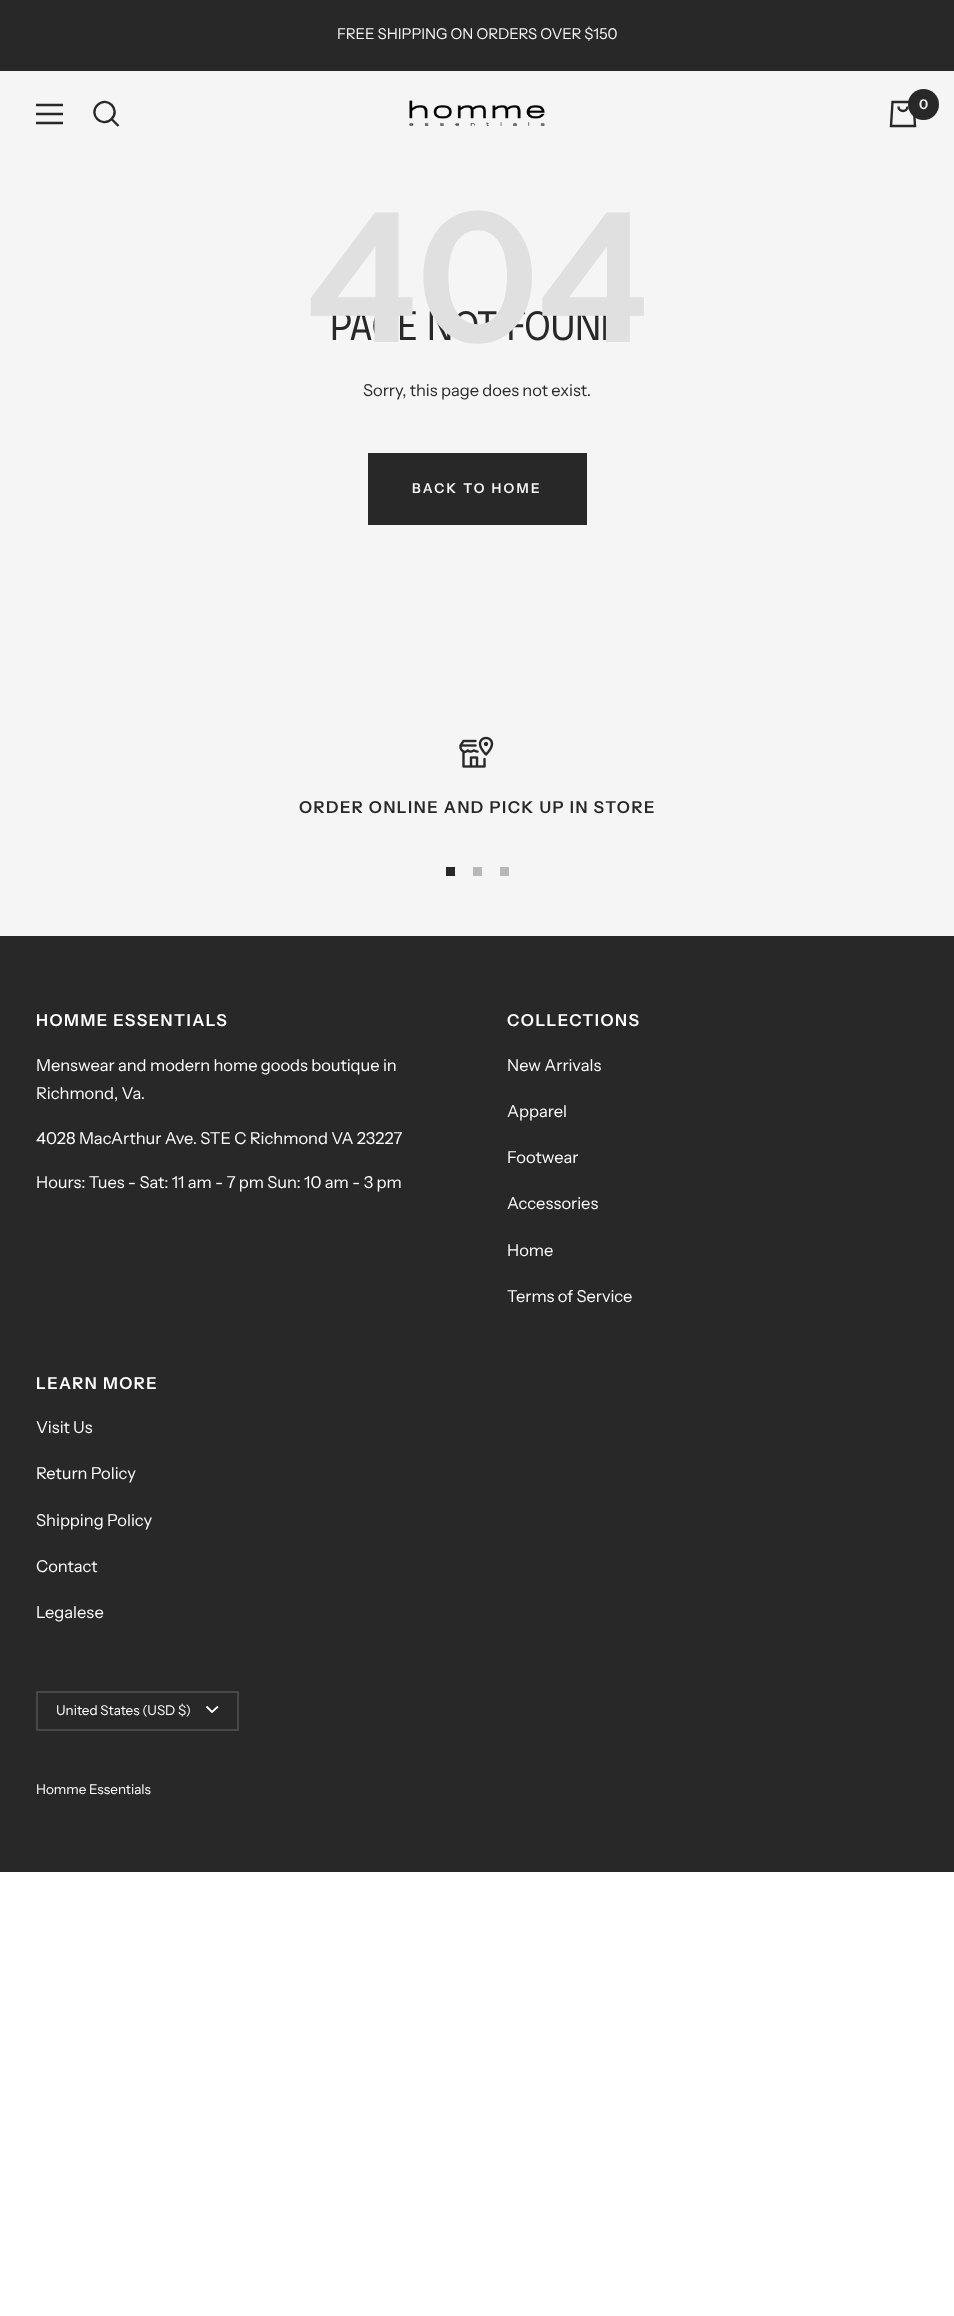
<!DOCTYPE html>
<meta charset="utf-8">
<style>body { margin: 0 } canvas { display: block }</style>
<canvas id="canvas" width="954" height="2316"></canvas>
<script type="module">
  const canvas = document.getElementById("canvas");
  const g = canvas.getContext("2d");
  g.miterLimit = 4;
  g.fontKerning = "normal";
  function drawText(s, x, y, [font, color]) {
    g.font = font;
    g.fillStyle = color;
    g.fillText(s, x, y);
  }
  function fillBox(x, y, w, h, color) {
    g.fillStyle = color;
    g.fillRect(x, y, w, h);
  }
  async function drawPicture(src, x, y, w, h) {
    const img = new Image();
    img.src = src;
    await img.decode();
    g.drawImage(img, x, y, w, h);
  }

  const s1 = ["15px Instrument Sans", "#F5F5F5"];
  const s2 = ["600 13.5px Instrument Sans", "#F5F5F5"];
  const s3 = ["39px Epilogue", "#282828"];
  const s4 = ["600 180px Instrument Sans", "#E0E0E0"];
  const s5 = ["16.5px Instrument Sans", "#282828"];
  const s6 = ["600 16.5px Instrument Sans", "#282828"];
  const s7 = ["600 16.5px Instrument Sans", "#FFFFFF"];
  const s8 = ["16.5px Instrument Sans", "#FFFFFF"];
  const s9 = ["13.5px Instrument Sans", "#FFFFFF"];

  fillBox(0, 0, 954, 2316, "#FFFFFF");
  fillBox(0, 0, 954, 71, "#282828");
  drawText("FREE SHIPPING ON ORDERS OVER $150", 337, 39, s1);
  fillBox(0, 71, 954, 865, "#F5F5F5");
  g.beginPath();
  g.moveTo(36, 105);
  g.lineTo(63, 105);
  g.moveTo(36, 123);
  g.lineTo(63, 123);
  g.closePath();
  g.moveTo(36, 114);
  g.lineTo(63, 114);
  g.closePath();
  g.strokeStyle = "#282828";
  g.lineWidth = 2.4;
  g.stroke();
  g.beginPath();
  g.moveTo(111.5, 119);
  g.bezierCurveTo(121, 109.5, 107, 95.5, 97.5, 105);
  g.bezierCurveTo(88, 114.5, 102, 128.5, 111.5, 119);
  g.closePath();
  g.moveTo(111.5, 119);
  g.lineTo(118.5, 126);
  g.stroke();
  await drawPicture("pic1.png", 409, 100, 136, 26);
  g.beginPath();
  g.moveTo(892.5, 102);
  g.lineTo(913.5, 102);
  g.lineTo(915, 126);
  g.lineTo(891, 126);
  g.closePath();
  g.moveTo(898.5, 106.5);
  g.bezierCurveTo(898.5, 112.5, 907.5, 112.5, 907.5, 106.5);
  g.stroke();
  g.fillStyle = "#282828";
  g.beginPath();
  g.arc(923.5, 104.5, 15.5, 0, Math.PI * 2);
  g.fill();
  drawText("0", 919, 109, s2);
  g.letterSpacing = "-0.6px";
  drawText("PAGE NOT FOUND", 330, 340, s3);
  g.letterSpacing = "0px";
  drawText("404", 306, 342, s4);
  drawText("Sorry, this page does not exist.", 363, 396, s5);
  fillBox(368, 453, 219, 72, "#282828");
  g.letterSpacing = "2.25px";
  drawText("BACK TO HOME", 412, 493, s2);
  await drawPicture("pic2.png", 459, 736, 35, 32);
  g.letterSpacing = "1.5px";
  drawText("ORDER ONLINE AND PICK UP IN STORE", 299, 813, s6);
  fillBox(446, 867, 9, 9, "#282828");
  fillBox(473, 867, 9, 9, "#B8B8B8");
  fillBox(500, 867, 9, 9, "#B8B8B8");
  fillBox(0, 936, 954, 936, "#282828");
  drawText("HOMME ESSENTIALS", 36, 1026, s7);
  g.letterSpacing = "0px";
  drawText("Menswear and modern home goods boutique in", 36, 1071, s8);
  drawText("Richmond, Va.", 36, 1099, s8);
  drawText("4028 MacArthur Ave. STE C Richmond VA 23227", 36, 1144, s8);
  drawText("Hours: Tues - Sat: 11 am - 7 pm Sun: 10 am - 3 pm", 36, 1188, s8);
  g.letterSpacing = "1.5px";
  drawText("COLLECTIONS", 507, 1026, s7);
  g.letterSpacing = "0px";
  drawText("New Arrivals", 507, 1071, s8);
  drawText("Apparel", 507, 1117, s8);
  drawText("Footwear", 507, 1163, s8);
  drawText("Accessories", 507, 1209, s8);
  drawText("Home", 507, 1256, s8);
  drawText("Terms of Service", 507, 1302, s8);
  g.letterSpacing = "1.5px";
  drawText("LEARN MORE", 36, 1389, s7);
  g.letterSpacing = "0px";
  drawText("Visit Us", 36, 1433, s8);
  drawText("Return Policy", 36, 1479, s8);
  drawText("Shipping Policy", 36, 1526, s8);
  drawText("Contact", 36, 1572, s8);
  drawText("Legalese", 36, 1618, s8);
  g.strokeStyle = "#484848";
  g.lineWidth = 2;
  g.strokeRect(37, 1692, 201, 38);
  drawText("United States (USD $)", 56, 1715, s9);
  g.beginPath();
  g.moveTo(206.5, 1706.5);
  g.lineTo(212, 1712);
  g.lineTo(218, 1706.5);
  g.strokeStyle = "#FFFFFF";
  g.lineWidth = 1.8;
  g.stroke();
  drawText("Homme Essentials", 36, 1794, s9);
</script>
